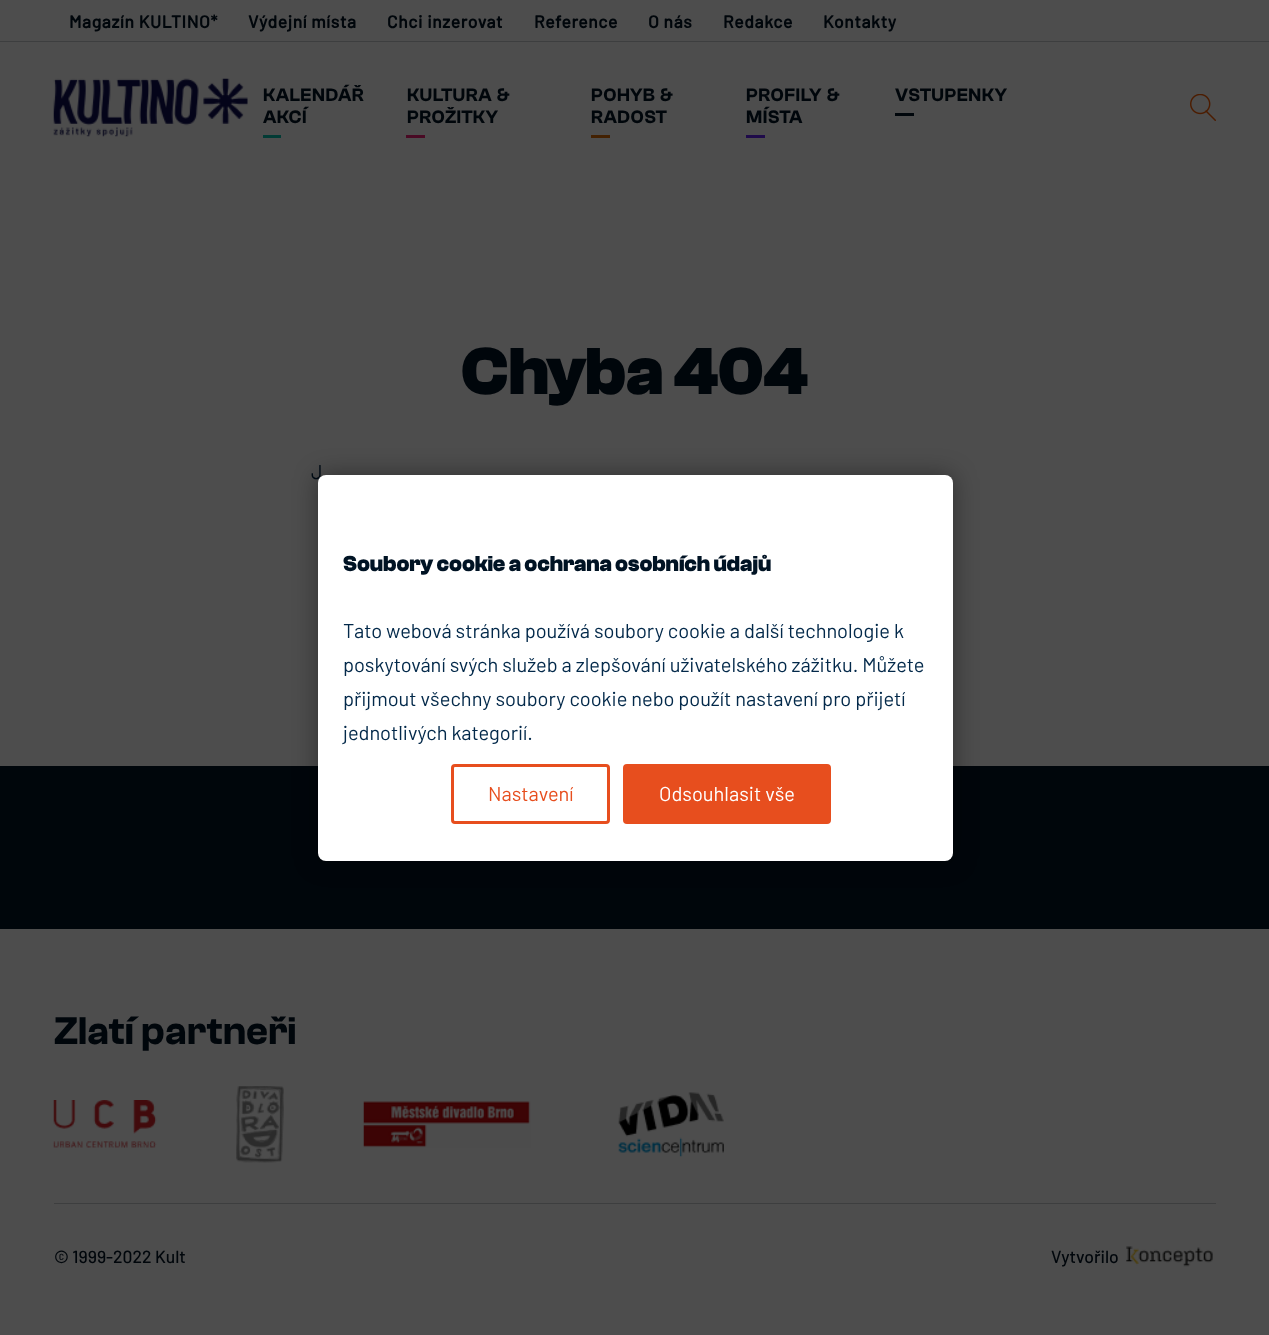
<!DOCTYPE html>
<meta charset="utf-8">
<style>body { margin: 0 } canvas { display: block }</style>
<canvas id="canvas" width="1269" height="1335"></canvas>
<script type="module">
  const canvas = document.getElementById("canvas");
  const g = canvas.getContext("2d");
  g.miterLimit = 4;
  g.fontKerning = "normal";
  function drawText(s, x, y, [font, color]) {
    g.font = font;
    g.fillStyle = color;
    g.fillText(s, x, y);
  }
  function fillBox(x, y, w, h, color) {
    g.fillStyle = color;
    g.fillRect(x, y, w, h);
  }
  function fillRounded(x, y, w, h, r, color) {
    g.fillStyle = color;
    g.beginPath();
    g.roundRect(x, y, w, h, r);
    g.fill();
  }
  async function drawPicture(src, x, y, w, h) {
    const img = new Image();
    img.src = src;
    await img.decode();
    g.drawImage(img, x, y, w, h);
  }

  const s1 = ["bold 17.5px Barlow", "#00060B"];
  const s2 = ["600 18.75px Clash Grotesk", "#00060B"];
  const s3 = ["bold 68.75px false", "#00060B"];
  const s4 = ["20px Barlow", "#010C16"];
  const s5 = ["600 40px Clash Grotesk", "#00060B"];
  const s6 = ["500 17.5px Barlow", "#00060B"];
  const s7 = ["bold 22.5px false", "#001324"];
  const s8 = ["20px Barlow", "#03294A"];
  const s9 = ["20px Barlow", "#E74E1E"];
  const s10 = ["20px Barlow", "#FFFFFF"];

  fillBox(0, 0, 1269, 1335, "#4D4D4D");
  fillBox(0, 41, 1269, 1, "#3D3E3F");
  g.letterSpacing = "0.6px";
  drawText("Magazín KULTINO*", 69, 28, s1);
  drawText("Výdejní místa", 248, 28, s1);
  drawText("Chci inzerovat", 387, 28, s1);
  drawText("Reference", 534, 28, s1);
  drawText("O nás", 648, 28, s1);
  drawText("Redakce", 723, 28, s1);
  drawText("Kontakty", 823, 28, s1);
  await drawPicture("pic1.png", 53, 78, 195, 59);
  drawText("KALENDÁŘ", 263, 101, s2);
  drawText("AKCÍ", 263, 123, s2);
  fillBox(263, 135, 18, 3, "#023B35");
  drawText("KULTURA &", 407, 101, s2);
  drawText("PROŽITKY", 407, 123, s2);
  fillBox(406, 135, 19, 3, "#490A24");
  drawText("POHYB &", 591, 101, s2);
  drawText("RADOST", 591, 123, s2);
  fillBox(591, 135, 19, 3, "#432102");
  drawText("PROFILY &", 746, 101, s2);
  drawText("MÍSTA", 746, 123, s2);
  fillBox(746, 135, 19, 3, "#1F0B4A");
  drawText("VSTUPENKY", 895, 101, s2);
  fillBox(895, 113, 19, 3, "#00060B");
  await drawPicture("pic2.png", 1190, 94, 26, 27);
  g.letterSpacing = "0px";
  drawText("Chyba 404", 461, 394, s3);
  drawText("J", 311, 479, s4);
  fillBox(0, 766, 1269, 163, "#00060B");
  drawText("Zlatí partneři", 54, 1044, s5);
  await drawPicture("pic3.png", 53, 1100, 104, 48);
  await drawPicture("pic4.png", 236, 1086, 48, 77);
  await drawPicture("pic5.png", 363, 1101, 168, 47);
  await drawPicture("pic6.png", 618, 1092, 106, 65);
  fillBox(54, 1203, 1162, 1, "#3D3E3F");
  drawText("© 1999-2022 Kult", 54, 1263, s6);
  drawText("Vytvořilo", 1051, 1263, s6);
  await drawPicture("pic7.png", 1126, 1246, 87, 21);
  g.fillStyle = "rgba(0, 0, 0, 0.4)";
  g.filter = "blur(12.5px)";
  g.beginPath();
  g.roundRect(318, 475, 635, 386, 8);
  g.fill();
  g.filter = "none";
  fillRounded(318, 475, 635, 386, 8, "#FFFFFF");
  drawText("Soubory cookie a ochrana osobních údajů", 343, 571, s7);
  drawText("Tato webová stránka používá soubory cookie a další technologie k", 343, 638, s8);
  drawText("poskytování svých služeb a zlepšování uživatelského zážitku. Můžete", 343, 672, s8);
  drawText("přijmout všechny soubory cookie nebo použít nastavení pro přijetí", 343, 706, s8);
  drawText("jednotlivých kategorií.", 343, 740, s8);
  g.beginPath();
  g.roundRect(452.5, 765.5, 156, 57, 2.5);
  g.strokeStyle = "#E74E1E";
  g.lineWidth = 3;
  g.stroke();
  drawText("Nastavení", 488, 801, s9);
  g.beginPath();
  g.roundRect(624.5, 765.5, 205, 57, 2.5);
  g.fill();
  g.stroke();
  drawText("Odsouhlasit vše", 659, 801, s10);
</script>
